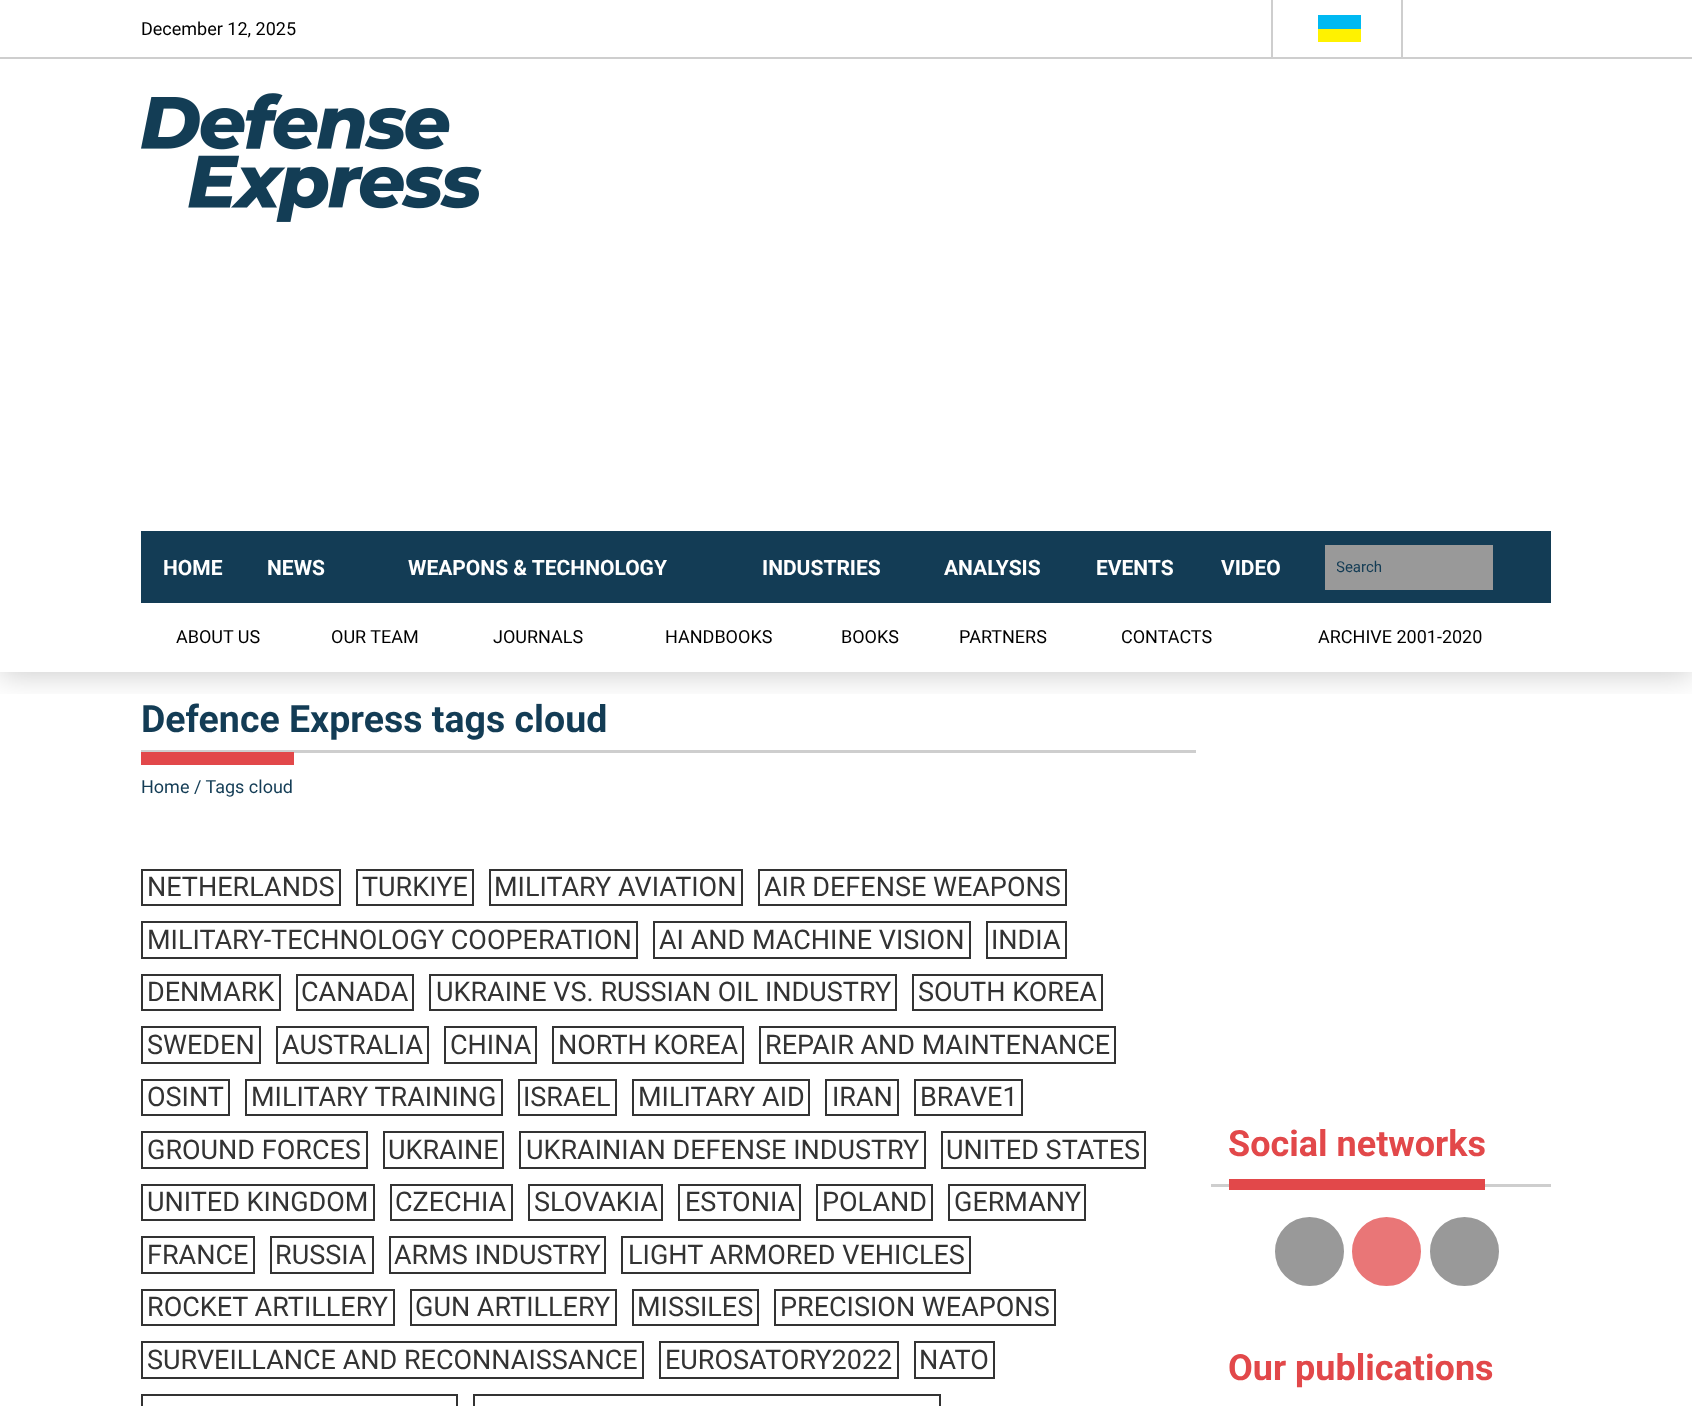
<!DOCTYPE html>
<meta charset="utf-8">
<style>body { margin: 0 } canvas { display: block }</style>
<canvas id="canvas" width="1692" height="1406"></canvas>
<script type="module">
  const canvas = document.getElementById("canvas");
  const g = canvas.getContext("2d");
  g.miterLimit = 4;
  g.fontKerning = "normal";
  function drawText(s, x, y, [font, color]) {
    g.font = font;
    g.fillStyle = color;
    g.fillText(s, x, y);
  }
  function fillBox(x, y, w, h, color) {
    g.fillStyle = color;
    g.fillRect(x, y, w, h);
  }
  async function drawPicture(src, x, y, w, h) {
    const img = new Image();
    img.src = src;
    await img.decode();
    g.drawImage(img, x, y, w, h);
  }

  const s1 = ["18px Roboto", "#000000"];
  const s2 = ["bold 21px Roboto", "#FFFFFF"];
  const s3 = ["15px Roboto", "#133C55"];
  const s4 = ["bold 37.5px Roboto", "#133C55"];
  const s5 = ["18px Roboto", "#133C55"];
  const s6 = ["27px Roboto", "#333333"];
  const s7 = ["bold 36px Roboto", "#E2484A"];

  fillBox(0, 0, 1692, 1406, "#FFFFFF");
  g.save();
  g.beginPath();
  g.rect(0, 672, 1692, 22);
  g.clip();
  g.fillStyle = "rgba(0, 0, 0, 0.2)";
  g.filter = "blur(15px)";
  g.beginPath();
  g.rect(0, 3, 1692, 672);
  g.fill();
  g.filter = "none";
  g.restore();
  fillBox(0, 57, 1692, 2, "#CECECE");
  drawText("December 12, 2025", 141, 35, s1);
  fillBox(1271, 0, 2, 57, "#CECECE");
  fillBox(1318, 15, 43, 14, "#00B9F2");
  fillBox(1318, 29, 43, 13, "#FFF200");
  fillBox(1401, 0, 2, 57, "#CECECE");
  await drawPicture("pic1.png", 141, 93, 341, 129);
  fillBox(141, 531, 1410, 72, "#133C55");
  drawText("HOME", 163, 575, s2);
  drawText("NEWS", 267, 575, s2);
  drawText("WEAPONS & TECHNOLOGY", 408, 575, s2);
  drawText("INDUSTRIES", 762, 575, s2);
  drawText("ANALYSIS", 944, 575, s2);
  drawText("EVENTS", 1096, 575, s2);
  drawText("VIDEO", 1221, 575, s2);
  fillBox(1325, 545, 168, 45, "#999999");
  g.save();
  g.beginPath();
  g.rect(1337, 560, 144, 16);
  g.clip();
  drawText("Search", 1336, 572, s3);
  g.restore();
  drawText("ABOUT US", 176, 643, s1);
  drawText("OUR TEAM", 331, 643, s1);
  drawText("JOURNALS", 493, 643, s1);
  drawText("HANDBOOKS", 665, 643, s1);
  drawText("BOOKS", 841, 643, s1);
  drawText("PARTNERS", 959, 643, s1);
  drawText("CONTACTS", 1121, 643, s1);
  drawText("ARCHIVE 2001-2020", 1318, 643, s1);
  drawText("Defence Express tags cloud", 141, 732, s4);
  fillBox(141, 750, 1055, 3, "#CECECE");
  fillBox(141, 752, 153, 13, "#E2484A");
  drawText("Home / Tags cloud", 141, 793, s5);
  g.strokeStyle = "#333333";
  g.lineWidth = 2;
  g.strokeRect(142, 870, 198, 35);
  drawText("NETHERLANDS", 147, 896, s6);
  g.strokeRect(357, 870, 116, 35);
  drawText("TURKIYE", 362, 896, s6);
  g.strokeRect(490, 870, 252, 35);
  drawText("MILITARY AVIATION", 494, 896, s6);
  g.strokeRect(759, 870, 307, 35);
  drawText("AIR DEFENSE WEAPONS", 764, 896, s6);
  g.strokeRect(142, 922, 495, 36);
  drawText("MILITARY-TECHNOLOGY COOPERATION", 147, 949, s6);
  g.strokeRect(654, 922, 316, 36);
  drawText("AI AND MACHINE VISION", 659, 949, s6);
  g.strokeRect(987, 922, 79, 36);
  drawText("INDIA", 991, 949, s6);
  g.strokeRect(142, 975, 138, 35);
  drawText("DENMARK", 147, 1001, s6);
  g.strokeRect(297, 975, 116, 35);
  drawText("CANADA", 301, 1001, s6);
  g.strokeRect(430, 975, 466, 35);
  drawText("UKRAINE VS. RUSSIAN OIL INDUSTRY", 436, 1001, s6);
  g.strokeRect(913, 975, 189, 35);
  drawText("SOUTH KOREA", 918, 1001, s6);
  g.strokeRect(142, 1027, 118, 36);
  drawText("SWEDEN", 147, 1054, s6);
  g.strokeRect(277, 1027, 151, 36);
  drawText("AUSTRALIA", 282, 1054, s6);
  g.strokeRect(445, 1027, 91, 36);
  drawText("CHINA", 450, 1054, s6);
  g.strokeRect(553, 1027, 190, 36);
  drawText("NORTH KOREA", 558, 1054, s6);
  g.strokeRect(760, 1027, 355, 36);
  drawText("REPAIR AND MAINTENANCE", 765, 1054, s6);
  g.strokeRect(142, 1080, 87, 35);
  drawText("OSINT", 147, 1106, s6);
  g.strokeRect(246, 1080, 256, 35);
  drawText("MILITARY TRAINING", 251, 1106, s6);
  g.strokeRect(519, 1080, 97, 35);
  drawText("ISRAEL", 523, 1106, s6);
  g.strokeRect(633, 1080, 176, 35);
  drawText("MILITARY AID", 638, 1106, s6);
  g.strokeRect(826, 1080, 72, 35);
  drawText("IRAN", 832, 1106, s6);
  g.strokeRect(915, 1080, 107, 35);
  drawText("BRAVE1", 920, 1106, s6);
  g.strokeRect(142, 1132, 225, 36);
  drawText("GROUND FORCES", 147, 1159, s6);
  g.strokeRect(384, 1132, 119, 36);
  drawText("UKRAINE", 388, 1159, s6);
  g.strokeRect(520, 1132, 405, 36);
  drawText("UKRAINIAN DEFENSE INDUSTRY", 526, 1159, s6);
  g.strokeRect(942, 1132, 203, 36);
  drawText("UNITED STATES", 946, 1159, s6);
  g.strokeRect(142, 1185, 232, 35);
  drawText("UNITED KINGDOM", 147, 1211, s6);
  g.strokeRect(391, 1185, 121, 35);
  drawText("CZECHIA", 395, 1211, s6);
  g.strokeRect(529, 1185, 133, 35);
  drawText("SLOVAKIA", 534, 1211, s6);
  g.strokeRect(679, 1185, 121, 35);
  drawText("ESTONIA", 685, 1211, s6);
  g.strokeRect(817, 1185, 115, 35);
  drawText("POLAND", 822, 1211, s6);
  g.strokeRect(949, 1185, 136, 35);
  drawText("GERMANY", 954, 1211, s6);
  g.strokeRect(142, 1237, 112, 36);
  drawText("FRANCE", 147, 1264, s6);
  g.strokeRect(271, 1237, 102, 36);
  drawText("RUSSIA", 275, 1264, s6);
  g.strokeRect(390, 1237, 215, 36);
  drawText("ARMS INDUSTRY", 394, 1264, s6);
  g.strokeRect(622, 1237, 348, 36);
  drawText("LIGHT ARMORED VEHICLES", 628, 1264, s6);
  g.strokeRect(142, 1290, 252, 35);
  drawText("ROCKET ARTILLERY", 147, 1316, s6);
  g.strokeRect(411, 1290, 205, 35);
  drawText("GUN ARTILLERY", 415, 1316, s6);
  g.strokeRect(633, 1290, 125, 35);
  drawText("MISSILES", 637, 1316, s6);
  g.strokeRect(775, 1290, 280, 35);
  drawText("PRECISION WEAPONS", 780, 1316, s6);
  g.strokeRect(142, 1342, 501, 36);
  drawText("SURVEILLANCE AND RECONNAISSANCE", 147, 1369, s6);
  g.strokeRect(660, 1342, 238, 36);
  drawText("EUROSATORY2022", 665, 1369, s6);
  g.strokeRect(915, 1342, 79, 36);
  drawText("NATO", 919, 1369, s6);
  g.strokeRect(142, 1395, 315, 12);
  g.strokeRect(474, 1395, 466, 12);
  fillBox(1211, 1184, 340, 3, "#CECECE");
  drawText("Social networks", 1228, 1156, s7);
  fillBox(1229, 1179, 256, 11, "#E2484A");
  g.fillStyle = "#999999";
  g.beginPath();
  g.arc(1309.5, 1251.5, 33.5, 0, Math.PI * 2);
  g.fill();
  g.strokeStyle = "#999999";
  g.stroke();
  g.fillStyle = "#E97677";
  g.beginPath();
  g.arc(1386.5, 1251.5, 33.5, 0, Math.PI * 2);
  g.fill();
  g.strokeStyle = "#E97677";
  g.stroke();
  g.fillStyle = "#999999";
  g.beginPath();
  g.arc(1464.5, 1251.5, 33.5, 0, Math.PI * 2);
  g.fill();
  g.strokeStyle = "#999999";
  g.stroke();
  drawText("Our publications", 1228, 1380, s7);
</script>
